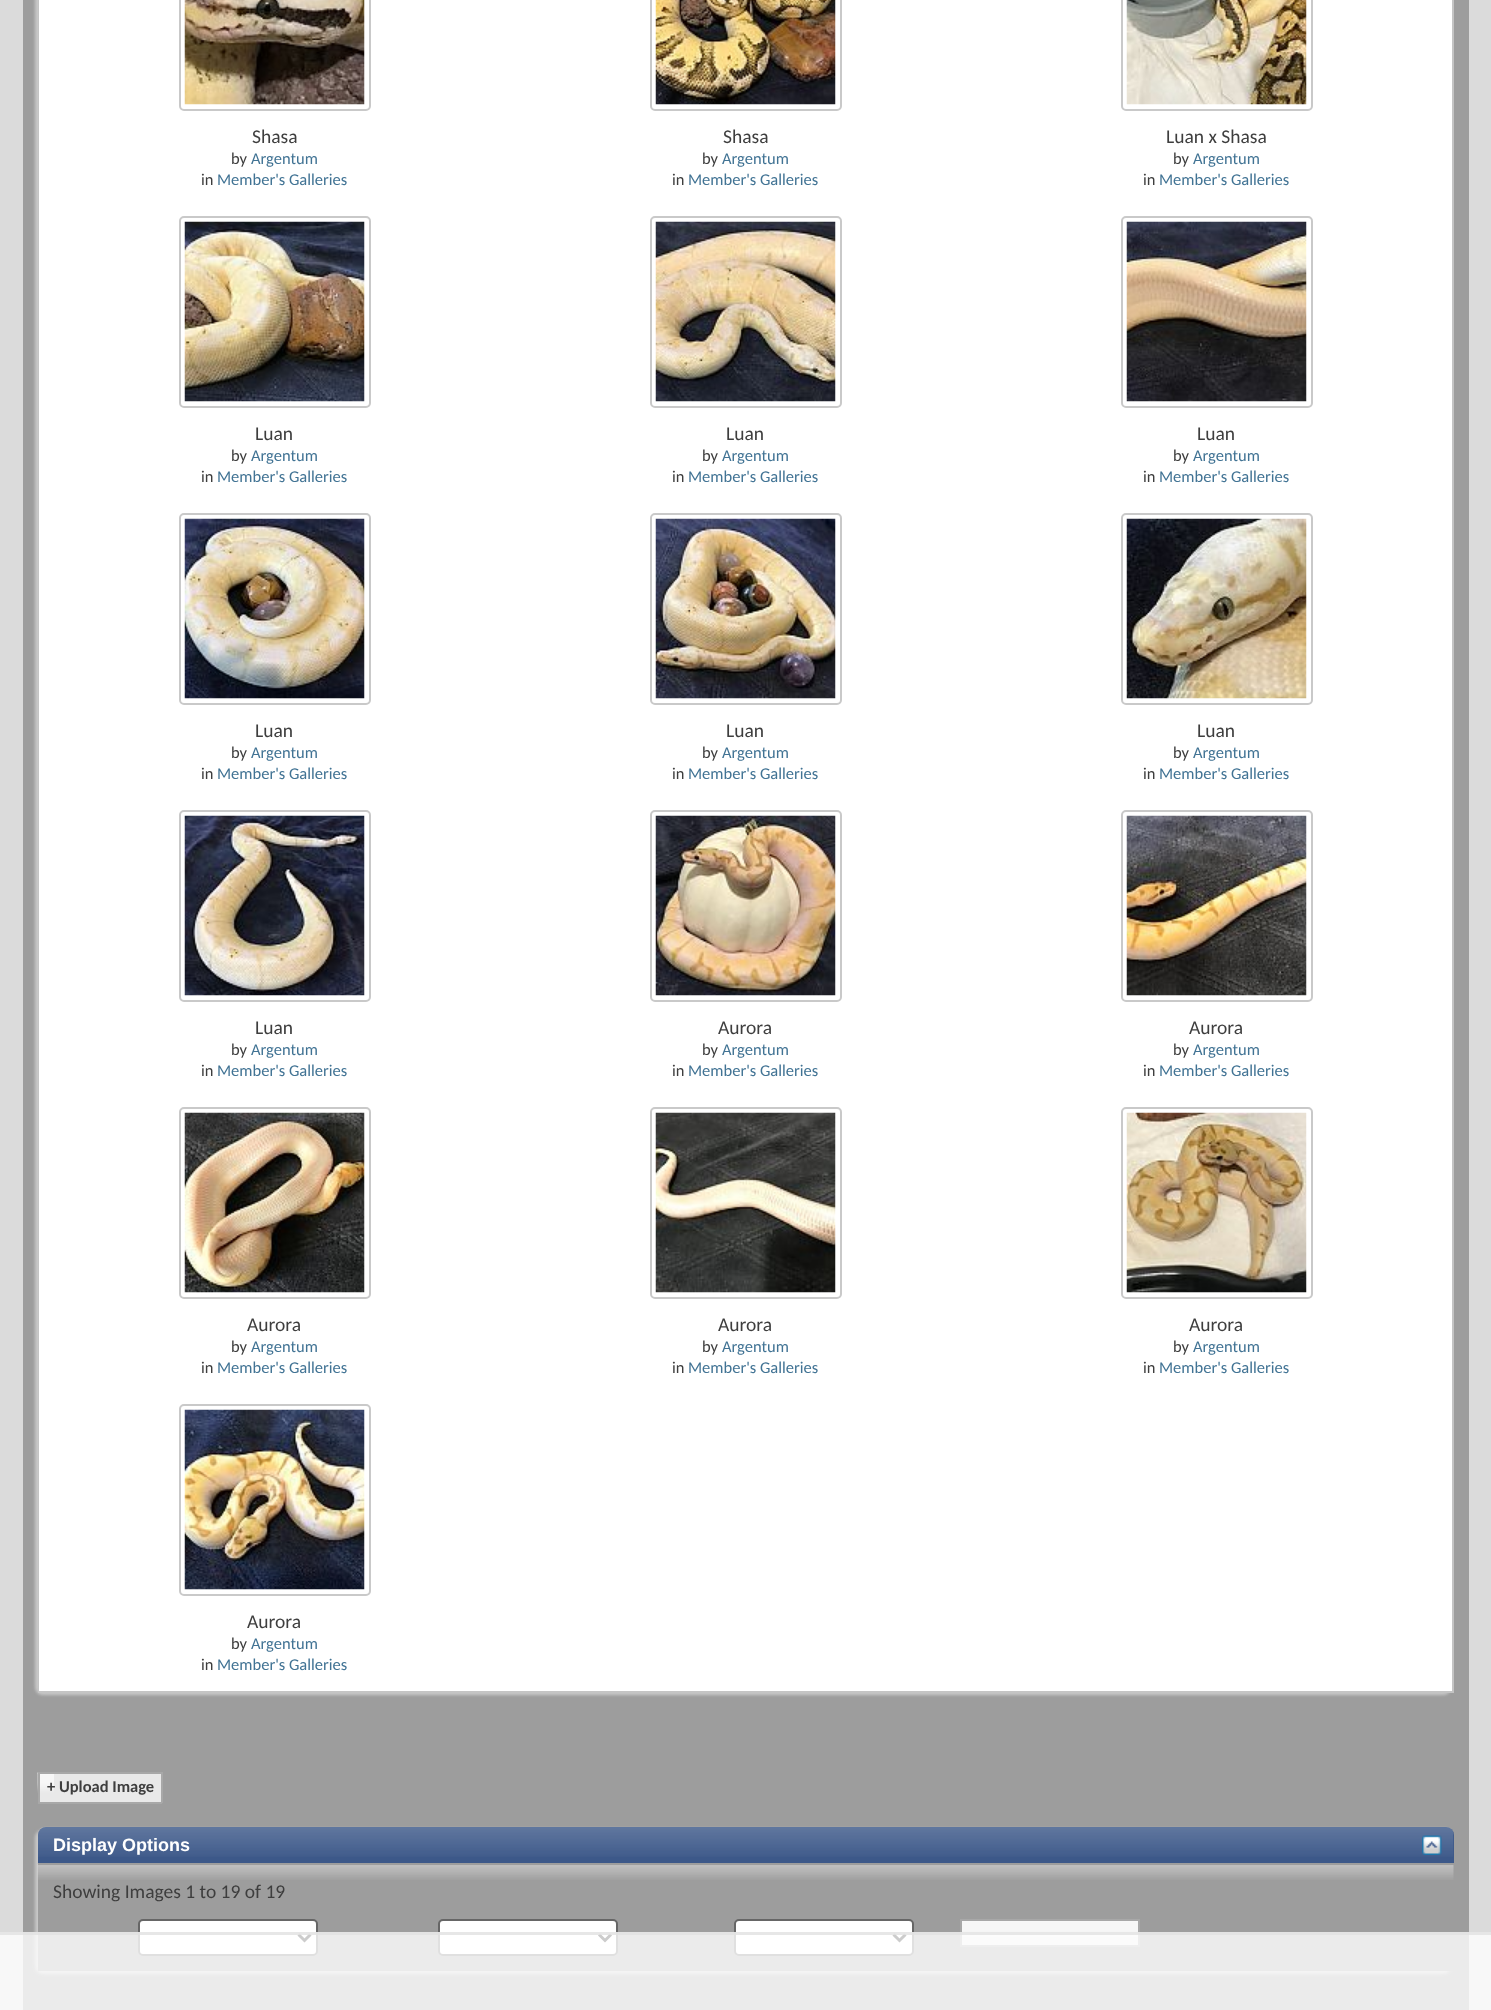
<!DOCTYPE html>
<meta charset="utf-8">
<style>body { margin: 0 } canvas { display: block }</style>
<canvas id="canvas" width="1491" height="2010"></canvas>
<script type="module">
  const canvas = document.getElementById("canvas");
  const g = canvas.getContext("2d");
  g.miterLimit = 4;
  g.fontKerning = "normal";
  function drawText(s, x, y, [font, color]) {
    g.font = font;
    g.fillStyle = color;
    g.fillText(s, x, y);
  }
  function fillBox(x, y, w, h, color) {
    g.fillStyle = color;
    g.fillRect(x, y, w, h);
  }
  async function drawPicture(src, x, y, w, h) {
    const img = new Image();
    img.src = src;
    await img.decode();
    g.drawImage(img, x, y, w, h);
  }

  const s1 = ["19.5px Carlito", "#3E3E3E"];
  const s2 = ["16.5px Carlito", "#3E3E3E"];
  const s3 = ["16.5px Carlito", "#417394"];
  const s4 = ["bold 16.5px Carlito", "#3E3E3E"];
  const s5 = ["bold 18px Liberation Sans", "#FFFFFF"];

  fillBox(0, 0, 1491, 2010, "#DBDBDB");
  fillBox(23, 0, 1446, 2010, "#9D9D9D");
  g.fillStyle = "#C8C8C8";
  g.filter = "blur(1.5px)";
  g.beginPath();
  g.roundRect(35, -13, 1416, 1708, 8);
  g.fill();
  g.filter = "none";
  fillBox(1452, 0, 2, 1692, "#C4C4C4");
  fillBox(38, 1691, 1416, 2, "#C4C4C4");
  fillBox(38, 0, 2, 1692, "#C4C4C4");
  fillBox(39, 0, 1413, 206, "#FFFFFF");
  g.beginPath();
  g.roundRect(180, -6, 190, 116, 4);
  g.strokeStyle = "#C9C9C9";
  g.lineWidth = 2;
  g.stroke();
  await drawPicture("pic1.png", 184, 0, 181, 105);
  drawText("Shasa", 252, 143, s1);
  drawText("by", 231, 164, s2);
  drawText("Argentum", 251, 164, s3);
  drawText("in", 201, 185, s2);
  drawText("Member's Galleries", 217, 185, s3);
  g.beginPath();
  g.roundRect(651, -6, 190, 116, 4);
  g.stroke();
  await drawPicture("pic2.png", 655, 0, 181, 105);
  drawText("Shasa", 723, 143, s1);
  drawText("by", 702, 164, s2);
  drawText("Argentum", 722, 164, s3);
  drawText("in", 672, 185, s2);
  drawText("Member's Galleries", 688, 185, s3);
  g.beginPath();
  g.roundRect(1122, -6, 190, 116, 4);
  g.stroke();
  await drawPicture("pic3.png", 1126, 0, 181, 105);
  drawText("Luan x Shasa", 1166, 143, s1);
  drawText("by", 1173, 164, s2);
  drawText("Argentum", 1193, 164, s3);
  drawText("in", 1143, 185, s2);
  drawText("Member's Galleries", 1159, 185, s3);
  fillBox(39, 206, 1413, 297, "#FFFFFF");
  g.beginPath();
  g.roundRect(180, 217, 190, 190, 4);
  g.stroke();
  await drawPicture("pic4.png", 184, 221, 181, 181);
  drawText("Luan", 255, 440, s1);
  drawText("by", 231, 461, s2);
  drawText("Argentum", 251, 461, s3);
  drawText("in", 201, 482, s2);
  drawText("Member's Galleries", 217, 482, s3);
  g.beginPath();
  g.roundRect(651, 217, 190, 190, 4);
  g.stroke();
  await drawPicture("pic5.png", 655, 221, 181, 181);
  drawText("Luan", 726, 440, s1);
  drawText("by", 702, 461, s2);
  drawText("Argentum", 722, 461, s3);
  drawText("in", 672, 482, s2);
  drawText("Member's Galleries", 688, 482, s3);
  g.beginPath();
  g.roundRect(1122, 217, 190, 190, 4);
  g.stroke();
  await drawPicture("pic6.png", 1126, 221, 181, 181);
  drawText("Luan", 1197, 440, s1);
  drawText("by", 1173, 461, s2);
  drawText("Argentum", 1193, 461, s3);
  drawText("in", 1143, 482, s2);
  drawText("Member's Galleries", 1159, 482, s3);
  fillBox(39, 503, 1413, 297, "#FFFFFF");
  g.beginPath();
  g.roundRect(180, 514, 190, 190, 4);
  g.stroke();
  await drawPicture("pic7.png", 184, 518, 181, 181);
  drawText("Luan", 255, 737, s1);
  drawText("by", 231, 758, s2);
  drawText("Argentum", 251, 758, s3);
  drawText("in", 201, 779, s2);
  drawText("Member's Galleries", 217, 779, s3);
  g.beginPath();
  g.roundRect(651, 514, 190, 190, 4);
  g.stroke();
  await drawPicture("pic8.png", 655, 518, 181, 181);
  drawText("Luan", 726, 737, s1);
  drawText("by", 702, 758, s2);
  drawText("Argentum", 722, 758, s3);
  drawText("in", 672, 779, s2);
  drawText("Member's Galleries", 688, 779, s3);
  g.beginPath();
  g.roundRect(1122, 514, 190, 190, 4);
  g.stroke();
  await drawPicture("pic9.png", 1126, 518, 181, 181);
  drawText("Luan", 1197, 737, s1);
  drawText("by", 1173, 758, s2);
  drawText("Argentum", 1193, 758, s3);
  drawText("in", 1143, 779, s2);
  drawText("Member's Galleries", 1159, 779, s3);
  fillBox(39, 800, 1413, 297, "#FFFFFF");
  g.beginPath();
  g.roundRect(180, 811, 190, 190, 4);
  g.stroke();
  await drawPicture("pic10.png", 184, 815, 181, 181);
  drawText("Luan", 255, 1034, s1);
  drawText("by", 231, 1055, s2);
  drawText("Argentum", 251, 1055, s3);
  drawText("in", 201, 1076, s2);
  drawText("Member's Galleries", 217, 1076, s3);
  g.beginPath();
  g.roundRect(651, 811, 190, 190, 4);
  g.stroke();
  await drawPicture("pic11.png", 655, 815, 181, 181);
  drawText("Aurora", 718, 1034, s1);
  drawText("by", 702, 1055, s2);
  drawText("Argentum", 722, 1055, s3);
  drawText("in", 672, 1076, s2);
  drawText("Member's Galleries", 688, 1076, s3);
  g.beginPath();
  g.roundRect(1122, 811, 190, 190, 4);
  g.stroke();
  await drawPicture("pic12.png", 1126, 815, 181, 181);
  drawText("Aurora", 1189, 1034, s1);
  drawText("by", 1173, 1055, s2);
  drawText("Argentum", 1193, 1055, s3);
  drawText("in", 1143, 1076, s2);
  drawText("Member's Galleries", 1159, 1076, s3);
  fillBox(39, 1097, 1413, 297, "#FFFFFF");
  g.beginPath();
  g.roundRect(180, 1108, 190, 190, 4);
  g.stroke();
  await drawPicture("pic13.png", 184, 1112, 181, 181);
  drawText("Aurora", 247, 1331, s1);
  drawText("by", 231, 1352, s2);
  drawText("Argentum", 251, 1352, s3);
  drawText("in", 201, 1373, s2);
  drawText("Member's Galleries", 217, 1373, s3);
  g.beginPath();
  g.roundRect(651, 1108, 190, 190, 4);
  g.stroke();
  await drawPicture("pic14.png", 655, 1112, 181, 181);
  drawText("Aurora", 718, 1331, s1);
  drawText("by", 702, 1352, s2);
  drawText("Argentum", 722, 1352, s3);
  drawText("in", 672, 1373, s2);
  drawText("Member's Galleries", 688, 1373, s3);
  g.beginPath();
  g.roundRect(1122, 1108, 190, 190, 4);
  g.stroke();
  await drawPicture("pic15.png", 1126, 1112, 181, 181);
  drawText("Aurora", 1189, 1331, s1);
  drawText("by", 1173, 1352, s2);
  drawText("Argentum", 1193, 1352, s3);
  drawText("in", 1143, 1373, s2);
  drawText("Member's Galleries", 1159, 1373, s3);
  fillBox(39, 1394, 1413, 297, "#FFFFFF");
  g.beginPath();
  g.roundRect(180, 1405, 190, 190, 4);
  g.stroke();
  await drawPicture("pic16.png", 184, 1409, 181, 181);
  drawText("Aurora", 247, 1628, s1);
  drawText("by", 231, 1649, s2);
  drawText("Argentum", 251, 1649, s3);
  drawText("in", 201, 1670, s2);
  drawText("Member's Galleries", 217, 1670, s3);
  fillBox(40, 1774, 121, 28, "#E9E9E9");
  await drawPicture("pic17.png", 37, 1772, 17, 21);
  drawText("+ Upload Image", 47, 1792, s4);
  fillBox(38, 1772, 124, 2, "#A8A8A8");
  fillBox(38, 1802, 16, 2, "#A8A8A8");
  fillBox(38, 1772, 2, 31, "#A8A8A8");
  fillBox(161, 1772, 2, 31, "#A8A8A8");
  fillBox(54, 1802, 108, 2, "#A8A8A8");
  g.save();
  g.beginPath();
  g.moveTo(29, 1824);
  g.lineTo(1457, 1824);
  g.lineTo(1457, 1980);
  g.lineTo(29, 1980);
  g.closePath();
  g.moveTo(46, 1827);
  g.lineTo(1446, 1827);
  g.bezierCurveTo(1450.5, 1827, 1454, 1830.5, 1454, 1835);
  g.lineTo(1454, 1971);
  g.lineTo(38, 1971);
  g.lineTo(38, 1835);
  g.bezierCurveTo(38, 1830.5, 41.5, 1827, 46, 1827);
  g.closePath();
  g.clip("evenodd");
  g.fillStyle = "#C8C8C8";
  g.filter = "blur(1.5px)";
  g.beginPath();
  g.roundRect(35, 1830, 1416, 144, 8);
  g.fill();
  g.filter = "none";
  g.restore();
  g.fillStyle = "#3C5889";
  g.beginPath();
  g.roundRect(38, 1827, 1416, 36, [8, 8, 0, 0]);
  g.fill();
  await drawPicture("pic18.png", 38, 1826, 1416, 31);
  drawText("Display Options", 53, 1851, s5);
  await drawPicture("pic19.png", 1422, 1835, 20, 20);
  await drawPicture("pic20.png", 37, 1864, 1417, 16);
  fillBox(38, 1864, 1416, 1, "#9D9D9D");
  drawText("Showing Images 1 to 19 of 19", 53, 1898, s1);
  g.fillStyle = "#FFFFFF";
  g.beginPath();
  g.roundRect(139, 1920, 178, 35, 4);
  g.fill();
  g.strokeStyle = "#666666";
  g.stroke();
  g.beginPath();
  g.moveTo(298.5, 1934.5);
  g.lineTo(304.5, 1940.5);
  g.lineTo(310.5, 1934.5);
  g.strokeStyle = "#000000";
  g.lineWidth = 3;
  g.stroke();
  g.beginPath();
  g.roundRect(439, 1920, 178, 35, 4);
  g.fill();
  g.strokeStyle = "#666666";
  g.lineWidth = 2;
  g.stroke();
  g.beginPath();
  g.moveTo(599, 1934.5);
  g.lineTo(605, 1940.5);
  g.lineTo(611, 1934.5);
  g.strokeStyle = "#000000";
  g.lineWidth = 3;
  g.stroke();
  g.beginPath();
  g.roundRect(735, 1920, 178, 35, 4);
  g.fill();
  g.strokeStyle = "#666666";
  g.lineWidth = 2;
  g.stroke();
  g.beginPath();
  g.moveTo(893.5, 1934.5);
  g.lineTo(899.5, 1940.5);
  g.lineTo(905.5, 1934.5);
  g.strokeStyle = "#000000";
  g.lineWidth = 3;
  g.stroke();
  fillBox(962, 1921, 176, 24, "#E9E9E9");
  await drawPicture("pic21.png", 962, 1921, 176, 16);
  g.strokeStyle = "#A8A8A8";
  g.lineWidth = 2;
  g.strokeRect(961, 1920, 178, 26);
  fillBox(0, 1932, 1491, 78, "rgba(255, 255, 255, 0.8)");
  fillBox(0, 1932, 1491, 3, "rgba(225, 225, 225, 0.8)");
</script>
